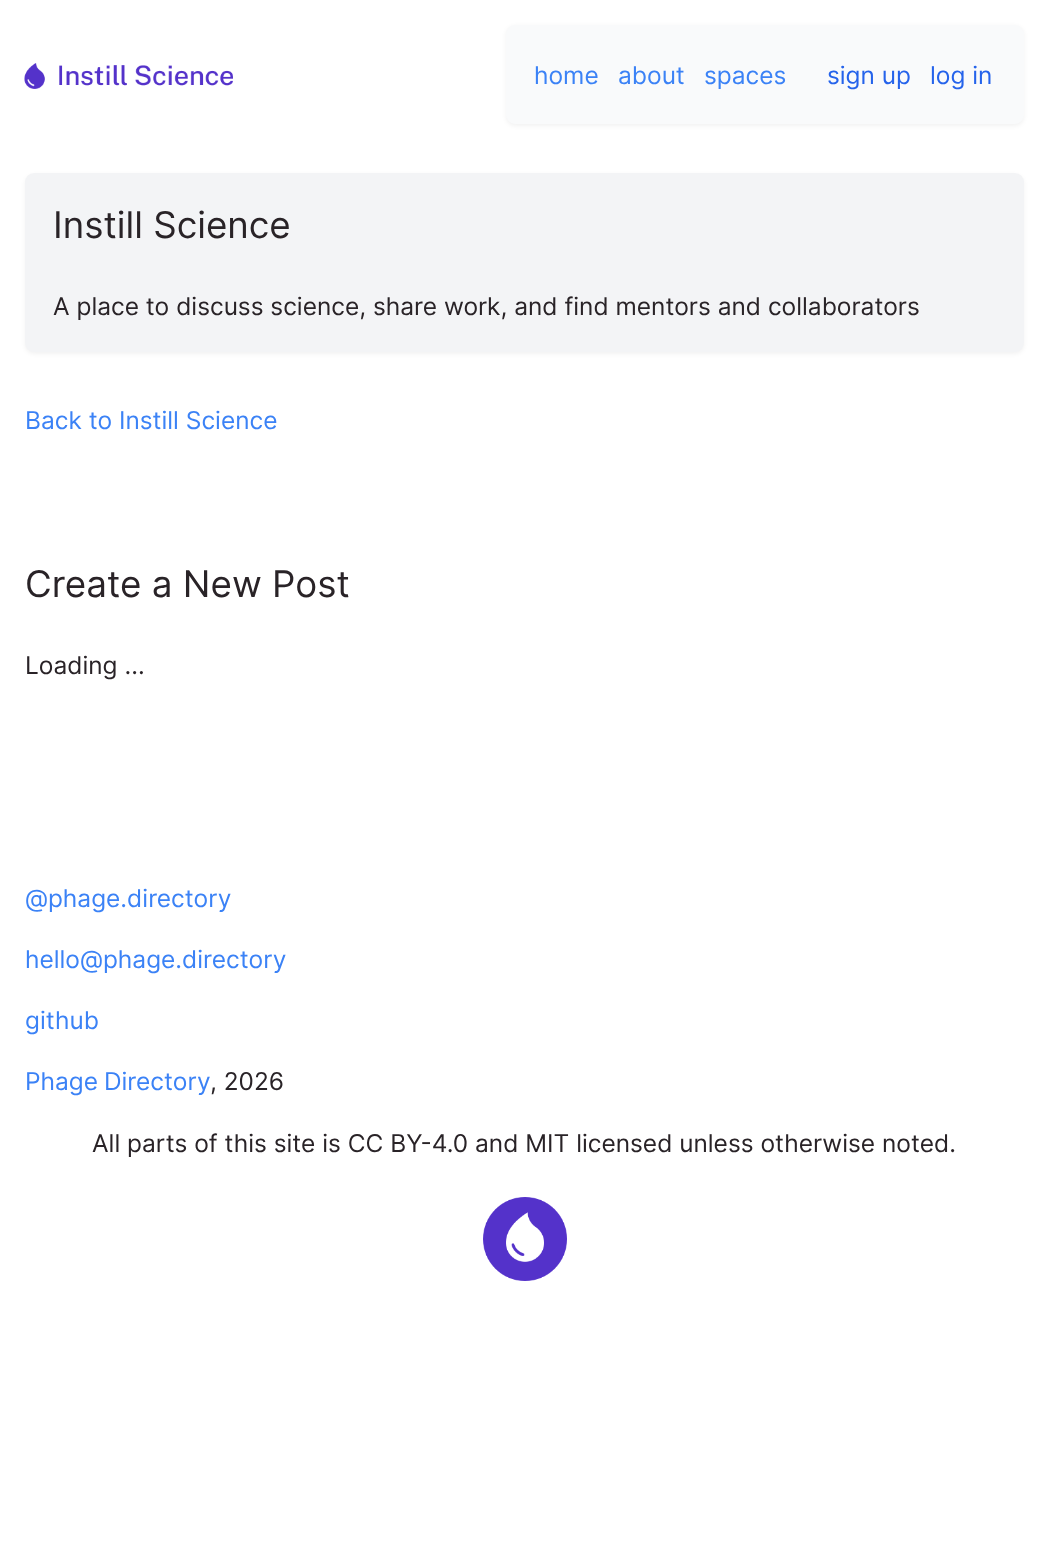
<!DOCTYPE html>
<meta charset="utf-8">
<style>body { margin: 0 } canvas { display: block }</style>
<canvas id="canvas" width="1047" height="1548"></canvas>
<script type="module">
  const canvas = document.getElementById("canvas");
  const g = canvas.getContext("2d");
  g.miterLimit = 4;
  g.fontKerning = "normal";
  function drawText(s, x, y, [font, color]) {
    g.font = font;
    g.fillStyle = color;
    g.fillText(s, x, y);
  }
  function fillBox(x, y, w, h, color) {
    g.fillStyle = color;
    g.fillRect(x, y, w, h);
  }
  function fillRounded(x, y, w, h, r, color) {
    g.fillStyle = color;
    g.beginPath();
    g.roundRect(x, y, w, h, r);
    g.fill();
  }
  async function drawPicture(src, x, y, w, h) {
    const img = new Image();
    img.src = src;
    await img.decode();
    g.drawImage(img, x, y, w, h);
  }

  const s1 = ["24.5px Inter", "#3B82F6"];
  const s2 = ["24.5px Inter", "#2563EB"];
  const s3 = ["36.75px Inter", "#292327"];
  const s4 = ["24.5px Inter", "#292327"];

  fillBox(0, 0, 1047, 1548, "#FFFFFF");
  await drawPicture("pic1.png", 24, 63, 209, 26);
  g.fillStyle = "rgba(0, 0, 0, 0.05)";
  g.filter = "blur(2px)";
  g.beginPath();
  g.roundRect(506, 26, 518, 100, 9);
  g.fill();
  g.filter = "none";
  fillRounded(506, 25, 518, 99, 9, "#F9FAFB");
  drawText("home", 534, 84, s1);
  drawText("about", 618, 84, s1);
  drawText("spaces", 704, 84, s1);
  drawText("sign up", 827, 84, s2);
  drawText("log in", 930, 84, s2);
  g.fillStyle = "rgba(0, 0, 0, 0.05)";
  g.filter = "blur(2px)";
  g.beginPath();
  g.roundRect(25, 175, 999, 179, 9);
  g.fill();
  g.filter = "none";
  fillRounded(25, 173, 999, 179, 9, "#F3F4F6");
  drawText("Instill Science", 53, 238, s3);
  drawText("A place to discuss science, share work, and find mentors and collaborators", 53, 315, s4);
  drawText("Back to Instill Science", 25, 429, s1);
  drawText("Create a New Post", 25, 597, s3);
  drawText("Loading ...", 25, 674, s4);
  drawText("@phage.directory", 25, 907, s1);
  drawText("hello@phage.directory", 25, 968, s1);
  drawText("github", 25, 1029, s1);
  g.wordSpacing = "-1px";
  drawText("Phage Directory", 25, 1090, s1);
  g.wordSpacing = "0px";
  drawText(", 2026", 210, 1090, s4);
  drawText("All parts of this site is CC BY-4.0 and MIT licensed unless otherwise noted.", 92, 1152, s4);
  await drawPicture("pic2.png", 483, 1197, 84, 84);
</script>
